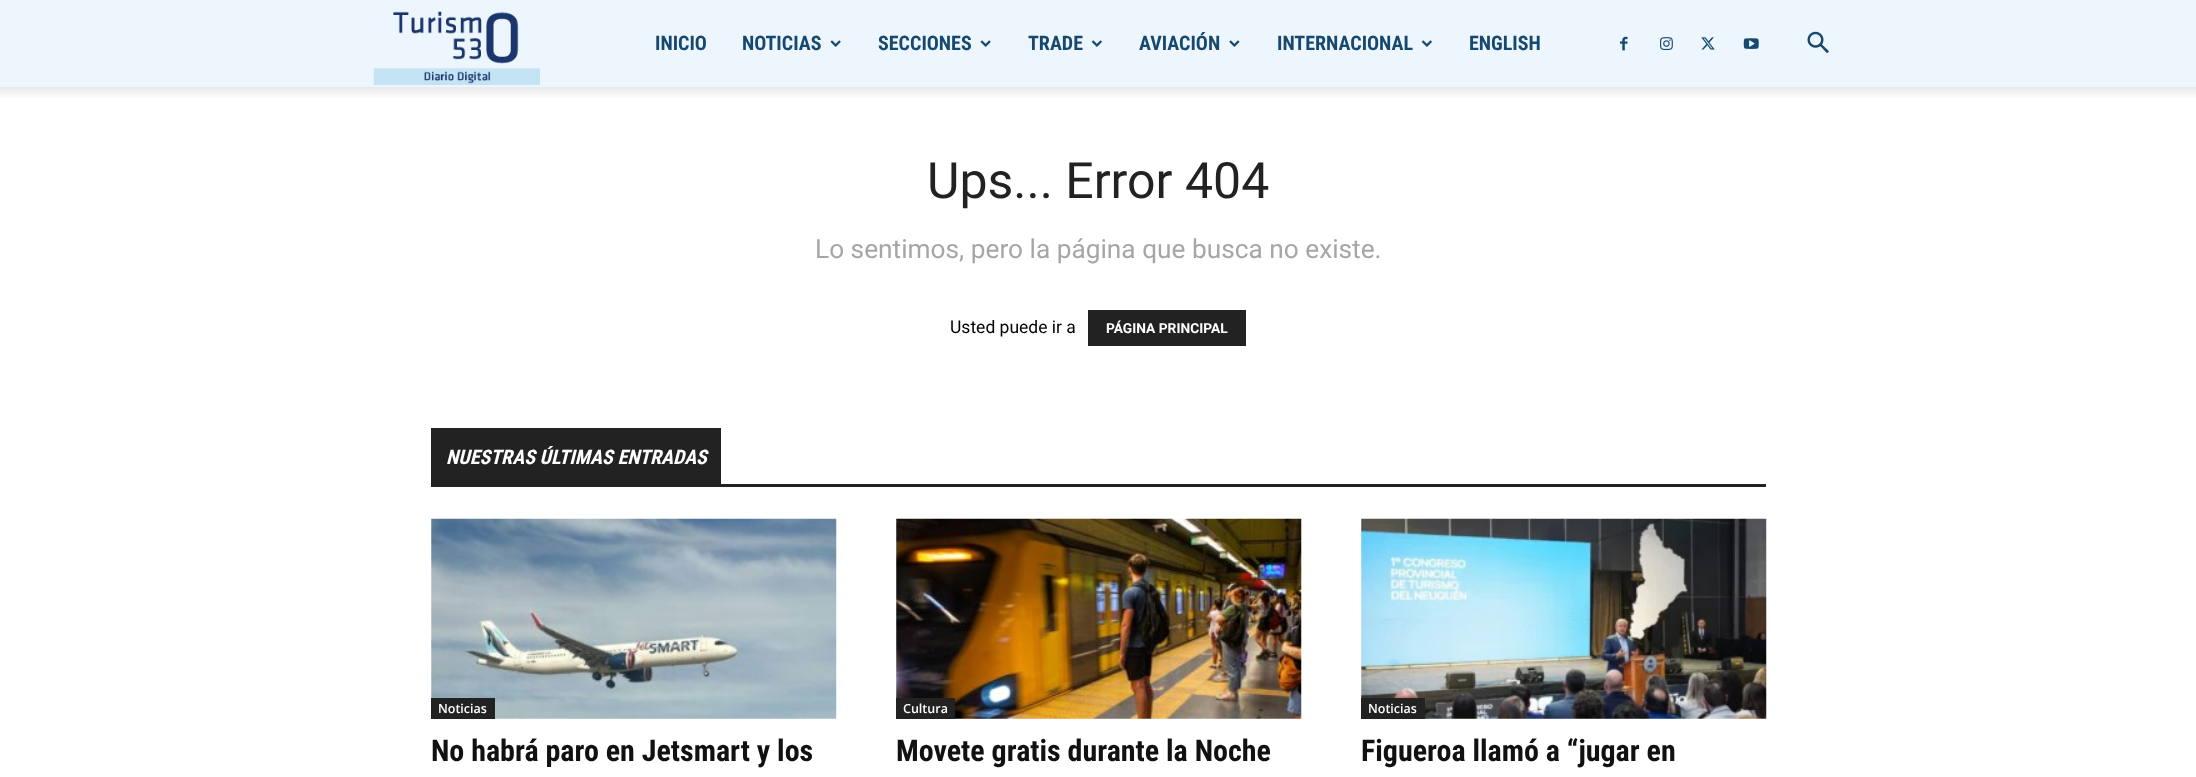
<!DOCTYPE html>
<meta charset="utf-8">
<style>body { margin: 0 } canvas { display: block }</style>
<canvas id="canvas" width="2196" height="777"></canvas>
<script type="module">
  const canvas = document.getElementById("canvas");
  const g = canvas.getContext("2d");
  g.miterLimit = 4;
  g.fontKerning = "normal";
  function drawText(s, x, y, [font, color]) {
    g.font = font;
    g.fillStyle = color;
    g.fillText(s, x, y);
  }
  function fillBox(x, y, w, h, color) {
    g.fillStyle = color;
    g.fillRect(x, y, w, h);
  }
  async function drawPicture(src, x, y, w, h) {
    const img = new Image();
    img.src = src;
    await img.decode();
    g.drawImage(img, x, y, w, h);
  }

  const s1 = ["bold 20px Roboto Condensed", "#174970"];
  const s2 = ["50px Roboto", "#222222"];
  const s3 = ["26.25px Roboto", "#A6A6A6"];
  const s4 = ["17.5px Roboto", "#000000"];
  const s5 = ["bold 13.75px Roboto", "#FFFFFF"];
  const s6 = ["italic bold 20px Roboto Condensed", "#FFFFFF"];
  const s7 = ["600 12.5px Open Sans", "#FFFFFF"];
  const s8 = ["bold 30px Roboto Condensed", "#111111"];

  fillBox(0, 0, 2196, 777, "#FFFFFF");
  fillBox(0, 0, 2196, 88, "#EDF6FD");
  await drawPicture("pic1.png", 373, 11, 167, 74);
  drawText("INICIO", 655, 50, s1);
  drawText("NOTICIAS", 742, 50, s1);
  await drawPicture("pic2.png", 830, 40, 11, 7);
  drawText("SECCIONES", 878, 50, s1);
  await drawPicture("pic2.png", 980, 40, 11, 7);
  drawText("TRADE", 1028, 50, s1);
  await drawPicture("pic3.png", 1091, 40, 11, 7);
  drawText("AVIACIÓN", 1139, 50, s1);
  await drawPicture("pic4.png", 1229, 40, 11, 7);
  drawText("INTERNACIONAL", 1277, 50, s1);
  await drawPicture("pic3.png", 1421, 40, 11, 7);
  drawText("ENGLISH", 1469, 50, s1);
  await drawPicture("pic5.png", 1620, 36, 8, 15);
  await drawPicture("pic6.png", 1660, 37, 13, 13);
  await drawPicture("pic7.png", 1701, 37, 14, 13);
  await drawPicture("pic8.png", 1743, 38, 16, 11);
  await drawPicture("pic9.png", 1807, 31, 22, 22);
  await drawPicture("pic10.png", 0, 87, 2196, 11);
  drawText("Ups... Error 404", 927, 198, s2);
  drawText("Lo sentimos, pero la página que busca no existe.", 815, 258, s3);
  drawText("Usted puede ir a", 950, 333, s4);
  fillBox(1088, 310, 158, 36, "#222222");
  drawText("PÁGINA PRINCIPAL", 1106, 333, s5);
  fillBox(431, 484, 1335, 3, "#222222");
  fillBox(431, 428, 290, 56, "#222222");
  drawText("NUESTRAS ÚLTIMAS ENTRADAS", 446, 464, s6);
  await drawPicture("pic11.png", 431, 518, 406, 201);
  fillBox(431, 698, 64, 21, "#222222");
  drawText("Noticias", 438, 713, s7);
  drawText("No habrá paro en Jetsmart y los", 431, 761, s8);
  await drawPicture("pic12.png", 896, 518, 406, 201);
  fillBox(896, 698, 59, 21, "#222222");
  drawText("Cultura", 903, 713, s7);
  drawText("Movete gratis durante la Noche", 896, 761, s8);
  await drawPicture("pic13.png", 1361, 518, 406, 201);
  fillBox(1361, 698, 64, 21, "#222222");
  drawText("Noticias", 1368, 713, s7);
  drawText("Figueroa llamó a “jugar en", 1361, 761, s8);
</script>
